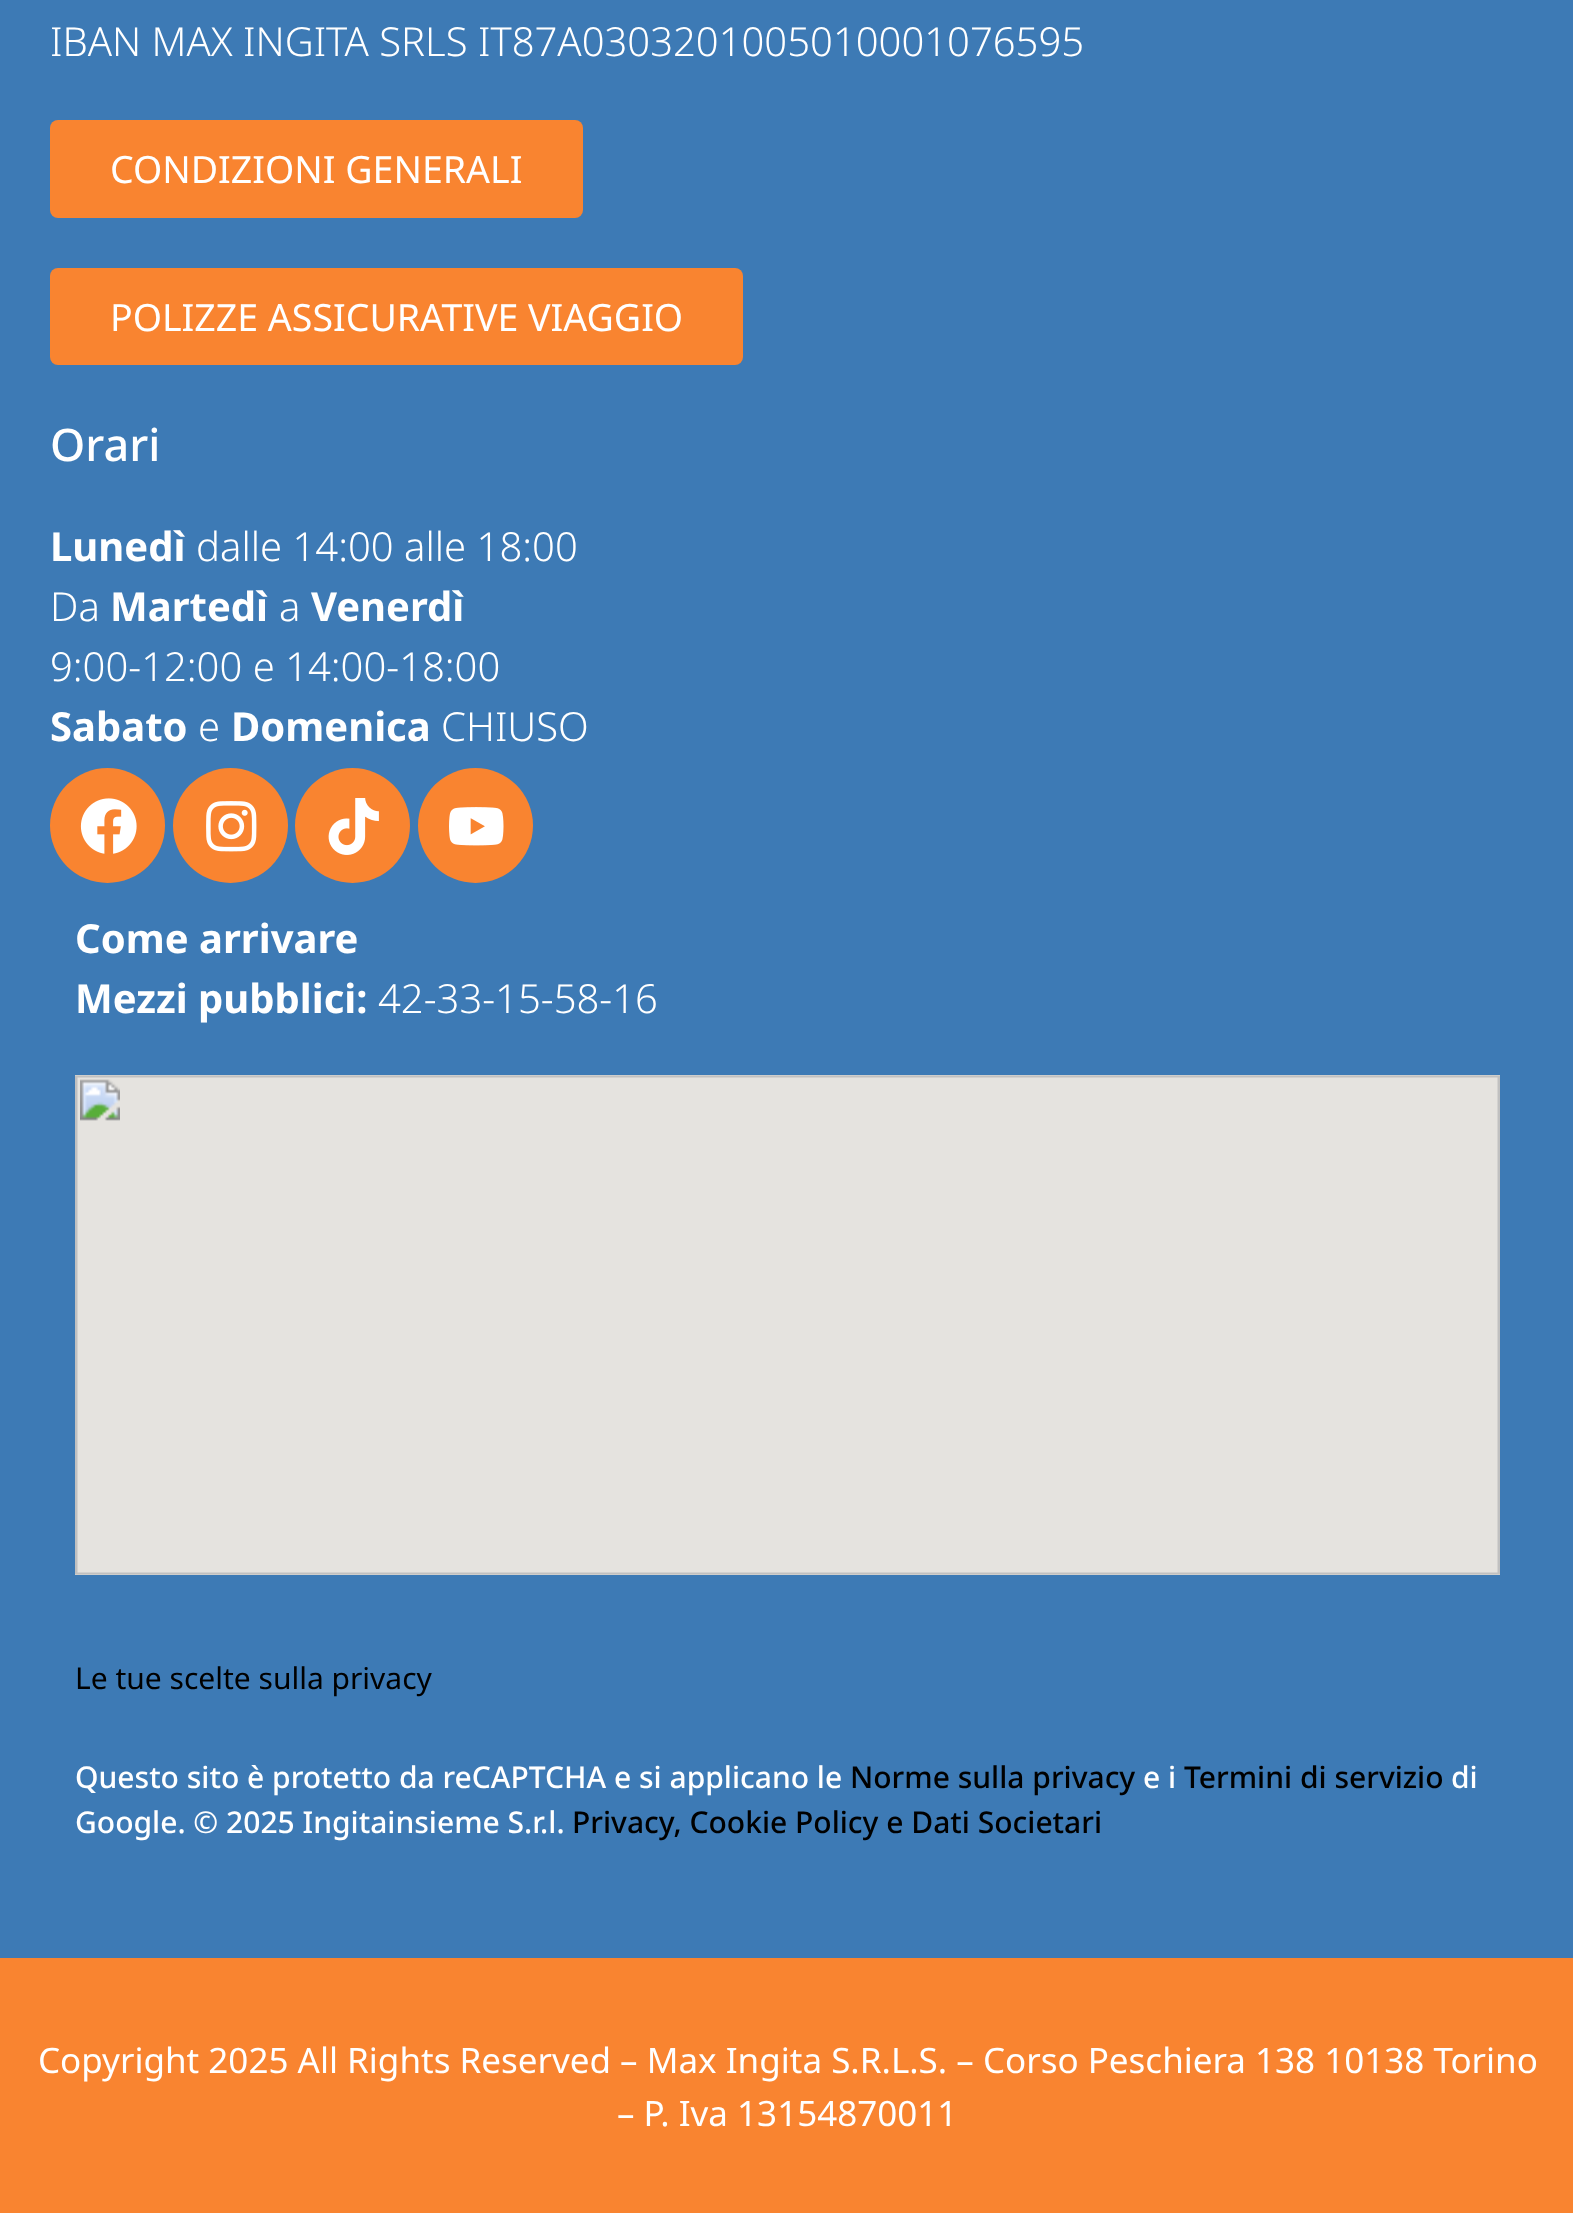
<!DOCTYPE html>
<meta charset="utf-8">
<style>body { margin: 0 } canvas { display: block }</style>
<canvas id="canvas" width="1573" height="2213"></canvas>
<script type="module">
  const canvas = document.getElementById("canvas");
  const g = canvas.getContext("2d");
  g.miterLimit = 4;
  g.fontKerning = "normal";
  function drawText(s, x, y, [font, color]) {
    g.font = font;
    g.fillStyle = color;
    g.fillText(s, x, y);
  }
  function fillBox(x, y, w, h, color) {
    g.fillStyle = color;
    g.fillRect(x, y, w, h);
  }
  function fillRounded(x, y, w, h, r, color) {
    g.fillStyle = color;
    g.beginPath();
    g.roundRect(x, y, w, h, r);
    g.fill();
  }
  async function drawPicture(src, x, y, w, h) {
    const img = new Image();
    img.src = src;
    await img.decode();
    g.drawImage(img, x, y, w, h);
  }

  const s1 = ["300 40px Noto Sans", "#FFFFFF"];
  const s2 = ["37.5px Noto Sans", "#FFFFFF"];
  const s3 = ["500 45px Noto Sans", "#FFFFFF"];
  const s4 = ["bold 40px Noto Sans", "#FFFFFF"];
  const s5 = ["30px Noto Sans", "#000000"];
  const s6 = ["500 30px Noto Sans", "#FFFFFF"];
  const s7 = ["500 30px Noto Sans", "#000000"];
  const s8 = ["35px Noto Sans", "#FFFFFF"];

  fillBox(0, 0, 1573, 2213, "#3D7AB5");
  drawText("IBAN MAX INGITA SRLS IT87A0303201005010001076595", 50, 56, s1);
  fillRounded(50, 120, 533, 98, 8, "#F98430");
  drawText("CONDIZIONI GENERALI", 110, 183, s2);
  fillRounded(50, 268, 693, 97, 8, "#F98430");
  drawText("POLIZZE ASSICURATIVE VIAGGIO", 110, 331, s2);
  drawText("Orari", 50, 461, s3);
  drawText("Lunedì", 50, 561, s4);
  drawText("dalle 14:00 alle 18:00", 196, 561, s1);
  drawText("Da", 50, 621, s1);
  drawText("Martedì", 110, 621, s4);
  drawText("a", 279, 621, s1);
  drawText("Venerdì", 311, 621, s4);
  drawText("9:00-12:00 e 14:00-18:00", 50, 681, s1);
  drawText("Sabato", 50, 741, s4);
  drawText("e", 198, 741, s1);
  drawText("Domenica", 231, 741, s4);
  drawText("CHIUSO", 441, 741, s1);
  g.fillStyle = "#F98430";
  g.beginPath();
  g.arc(107.5, 825.5, 57.5, 0, Math.PI * 2);
  g.fill();
  await drawPicture("pic1.png", 80, 798, 57, 56);
  g.beginPath();
  g.arc(230.5, 825.5, 57.5, 0, Math.PI * 2);
  g.fill();
  await drawPicture("pic2.png", 206, 801, 51, 51);
  g.beginPath();
  g.arc(352.5, 825.5, 57.5, 0, Math.PI * 2);
  g.fill();
  await drawPicture("pic3.png", 328, 798, 51, 57);
  g.beginPath();
  g.arc(475.5, 825.5, 57.5, 0, Math.PI * 2);
  g.fill();
  await drawPicture("pic4.png", 449, 807, 55, 39);
  drawText("Come arrivare", 75, 953, s4);
  drawText("Mezzi pubblici:", 75, 1013, s4);
  drawText("42-33-15-58-16", 378, 1013, s1);
  await drawPicture("pic5.png", 75, 1075, 1425, 500);
  drawText("Le tue scelte sulla privacy", 75, 1689, s5);
  drawText("Questo sito è protetto da reCAPTCHA e si applicano le", 75, 1788, s6);
  drawText("Norme sulla privacy", 850, 1788, s7);
  drawText("e i", 1143, 1788, s6);
  drawText("Termini di servizio", 1184, 1788, s7);
  drawText("di", 1451, 1788, s6);
  drawText("Google. © 2025 Ingitainsieme S.r.l.", 75, 1833, s6);
  drawText("Privacy, Cookie Policy e Dati Societari", 572, 1833, s7);
  fillBox(0, 1958, 1573, 255, "#F98430");
  drawText("Copyright 2025 All Rights Reserved – Max Ingita S.R.L.S. – Corso Peschiera 138 10138 Torino", 38, 2073, s8);
  drawText("– P. Iva 13154870011", 617, 2126, s8);
</script>
